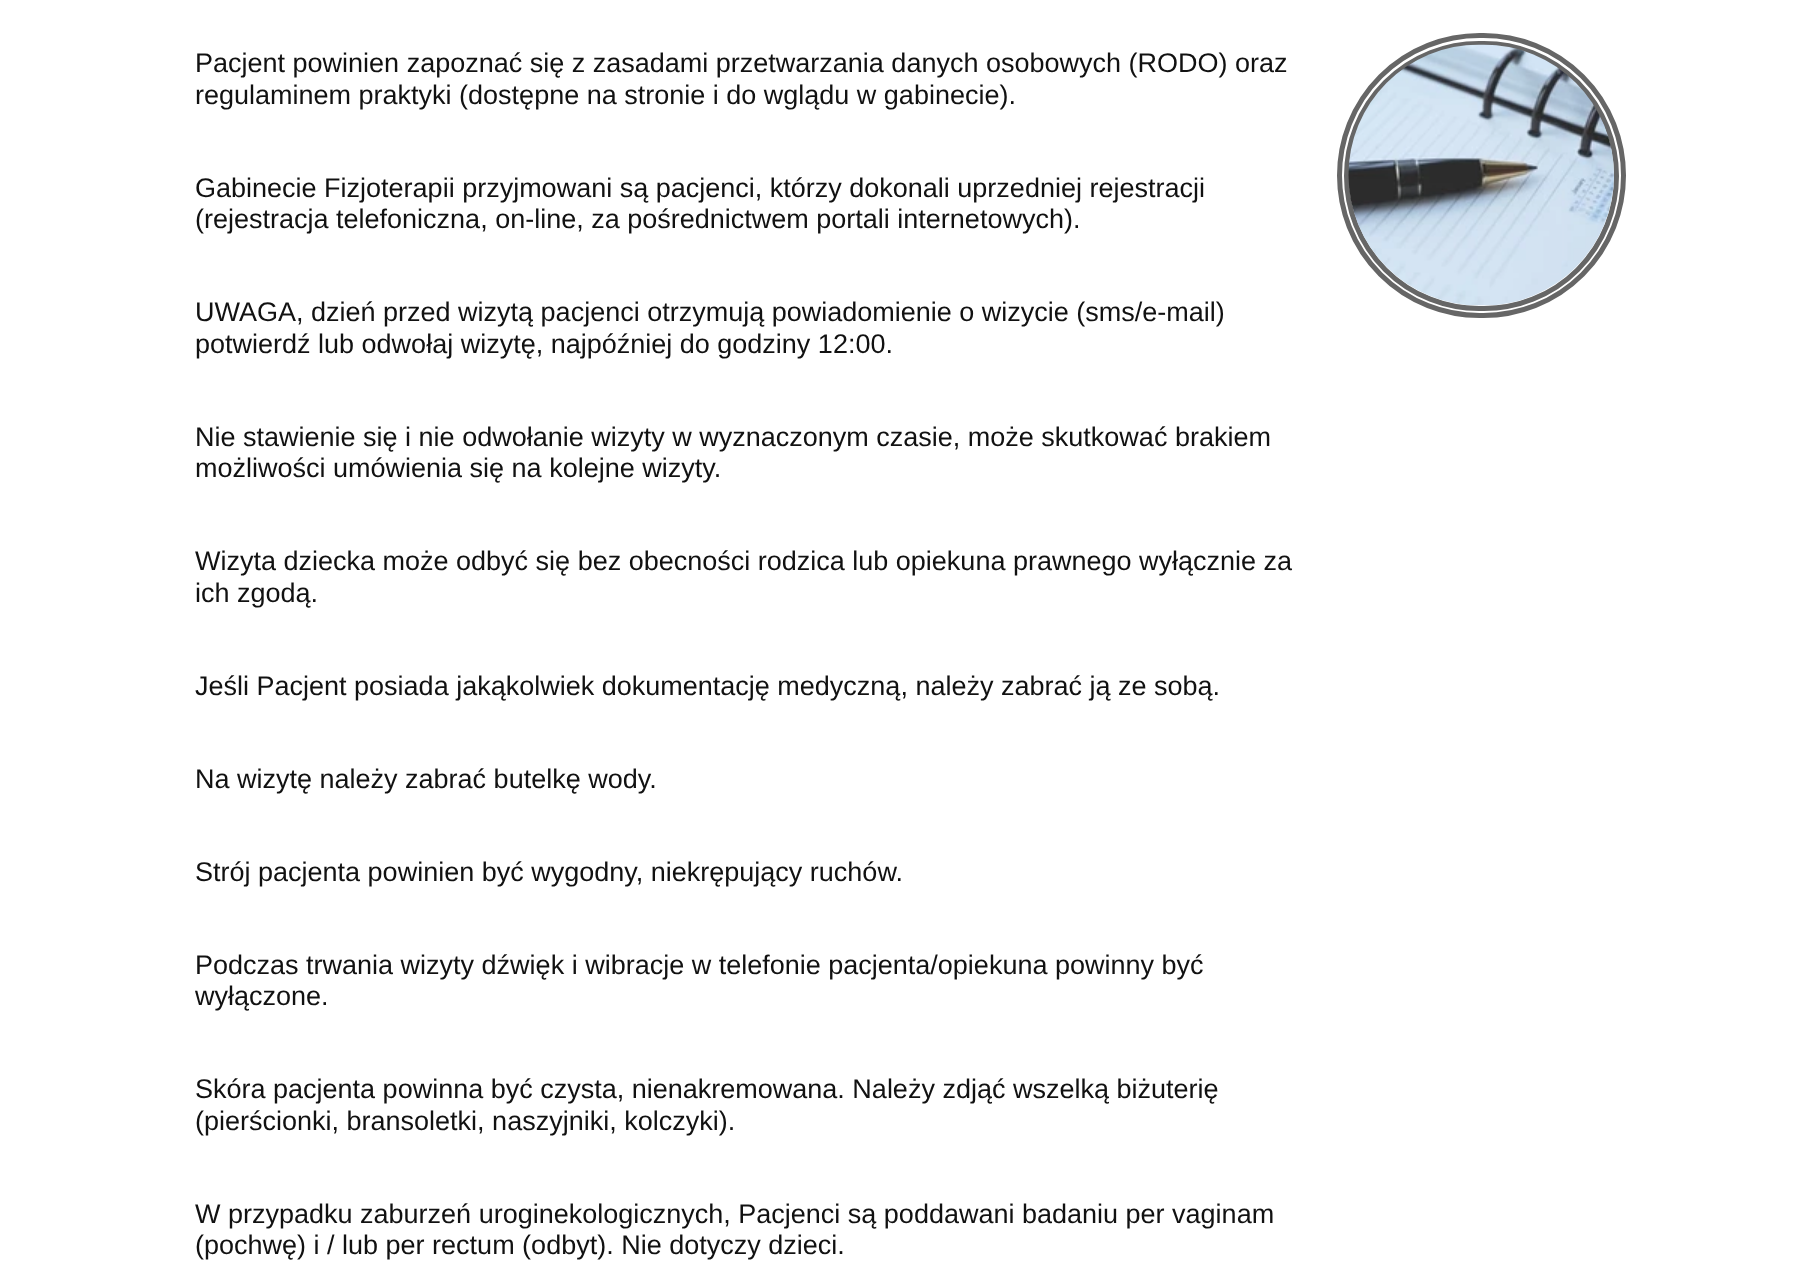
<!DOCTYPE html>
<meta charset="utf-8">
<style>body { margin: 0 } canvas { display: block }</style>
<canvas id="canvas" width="1793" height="1283"></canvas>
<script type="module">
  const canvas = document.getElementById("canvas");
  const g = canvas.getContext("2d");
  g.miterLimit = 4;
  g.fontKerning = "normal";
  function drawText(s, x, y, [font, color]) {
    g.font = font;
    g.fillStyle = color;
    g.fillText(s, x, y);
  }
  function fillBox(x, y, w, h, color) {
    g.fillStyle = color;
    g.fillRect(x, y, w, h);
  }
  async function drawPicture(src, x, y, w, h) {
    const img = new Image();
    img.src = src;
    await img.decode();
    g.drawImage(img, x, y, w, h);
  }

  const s1 = ["27px Liberation Sans", "#111111"];

  fillBox(0, 0, 1793, 1283, "#FFFFFF");
  drawText("Pacjent powinien zapoznać się z zasadami przetwarzania danych osobowych (RODO) oraz", 195, 72, s1);
  drawText("regulaminem praktyki (dostępne na stronie i do wglądu w gabinecie).", 195, 104, s1);
  drawText("Gabinecie Fizjoterapii przyjmowani są pacjenci, którzy dokonali uprzedniej rejestracji", 195, 197, s1);
  drawText("(rejestracja telefoniczna, on-line, za pośrednictwem portali internetowych).", 195, 228, s1);
  drawText("UWAGA, dzień przed wizytą pacjenci otrzymują powiadomienie o wizycie (sms/e-mail)", 195, 321, s1);
  drawText("potwierdź lub odwołaj wizytę, najpóźniej do godziny 12:00.", 195, 353, s1);
  drawText("Nie stawienie się i nie odwołanie wizyty w wyznaczonym czasie, może skutkować brakiem", 195, 446, s1);
  drawText("możliwości umówienia się na kolejne wizyty.", 195, 477, s1);
  drawText("Wizyta dziecka może odbyć się bez obecności rodzica lub opiekuna prawnego wyłącznie za", 195, 570, s1);
  drawText("ich zgodą.", 195, 602, s1);
  drawText("Jeśli Pacjent posiada jakąkolwiek dokumentację medyczną, należy zabrać ją ze sobą.", 195, 695, s1);
  drawText("Na wizytę należy zabrać butelkę wody.", 195, 788, s1);
  drawText("Strój pacjenta powinien być wygodny, niekrępujący ruchów.", 195, 881, s1);
  drawText("Podczas trwania wizyty dźwięk i wibracje w telefonie pacjenta/opiekuna powinny być", 195, 974, s1);
  drawText("wyłączone.", 195, 1005, s1);
  drawText("Skóra pacjenta powinna być czysta, nienakremowana. Należy zdjąć wszelką biżuterię", 195, 1098, s1);
  drawText("(pierścionki, bransoletki, naszyjniki, kolczyki).", 195, 1130, s1);
  drawText("W przypadku zaburzeń uroginekologicznych, Pacjenci są poddawani badaniu per vaginam", 195, 1223, s1);
  drawText("(pochwę) i / lub per rectum (odbyt). Nie dotyczy dzieci.", 195, 1254, s1);
  g.beginPath();
  g.roundRect(1339.5, 35.5, 284, 280, 140);
  g.strokeStyle = "#666666";
  g.lineWidth = 5;
  g.stroke();
  g.beginPath();
  g.roundRect(1346.5, 43.5, 270, 265, 132.5);
  g.stroke();
  await drawPicture("pic1.png", 1348, 44, 266, 262);
</script>
